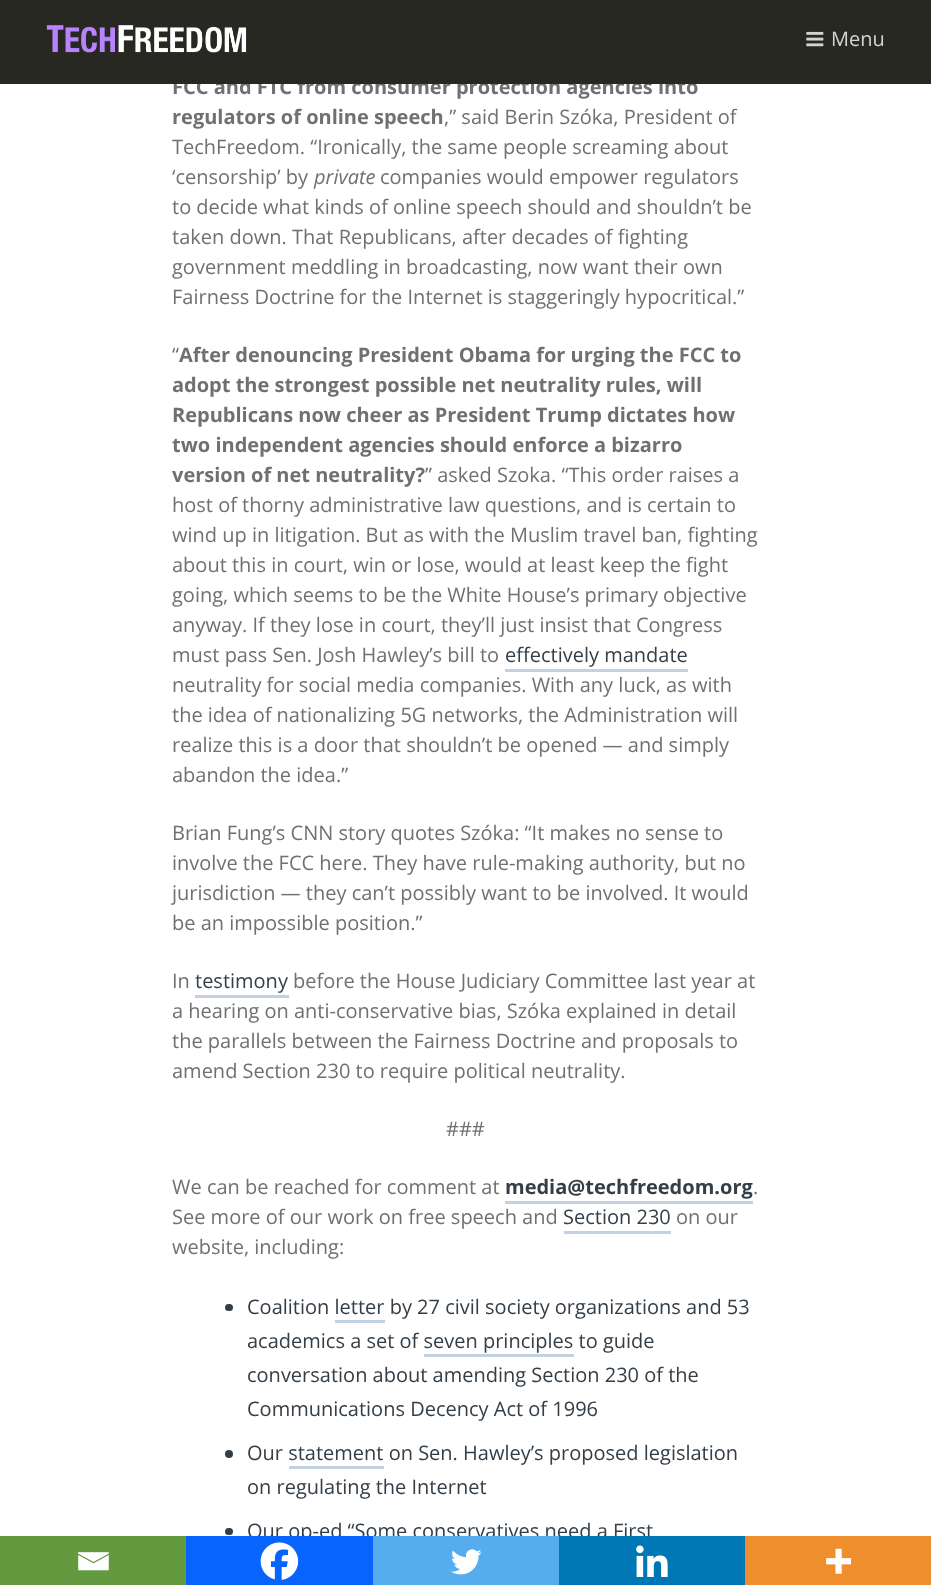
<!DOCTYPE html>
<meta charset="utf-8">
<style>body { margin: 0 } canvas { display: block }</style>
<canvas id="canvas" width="931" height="1585"></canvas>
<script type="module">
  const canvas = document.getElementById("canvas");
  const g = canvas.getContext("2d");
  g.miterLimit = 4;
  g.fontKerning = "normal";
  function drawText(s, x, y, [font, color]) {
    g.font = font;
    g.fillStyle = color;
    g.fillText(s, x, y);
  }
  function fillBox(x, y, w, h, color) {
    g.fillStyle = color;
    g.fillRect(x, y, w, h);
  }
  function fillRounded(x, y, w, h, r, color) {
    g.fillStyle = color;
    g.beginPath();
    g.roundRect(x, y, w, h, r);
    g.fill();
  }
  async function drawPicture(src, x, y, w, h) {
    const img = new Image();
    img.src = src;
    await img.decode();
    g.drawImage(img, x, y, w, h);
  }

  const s1 = ["bold 20px Open Sans", "#707070"];
  const s2 = ["20px Open Sans", "#D4D4D3"];
  const s3 = ["20px Open Sans", "#707070"];
  const s4 = ["italic 20px Open Sans", "#707070"];
  const s5 = ["20px Open Sans", "#343E47"];
  const s6 = ["bold 20px Open Sans", "#343E47"];

  fillBox(0, 0, 931, 1585, "#FFFFFF");
  drawText("FCC and FTC from consumer protection agencies into", 172, 94, s1);
  fillBox(0, 0, 931, 84, "#272822");
  await drawPicture("pic1.png", 46, 25, 201, 28);
  await drawPicture("pic2.png", 806, 31, 18, 16);
  drawText("Menu", 831, 46, s2);
  drawText("regulators of online speech", 172, 124, s1);
  drawText(",” said Berin Szóka, President of", 444, 124, s3);
  drawText("TechFreedom. “Ironically, the same people screaming about", 172, 154, s3);
  drawText("‘censorship’ by", 172, 184, s3);
  drawText("private", 314, 184, s4);
  drawText("companies would empower regulators", 380, 184, s3);
  drawText("to decide what kinds of online speech should and shouldn’t be", 172, 214, s3);
  drawText("taken down. That Republicans, after decades of fighting", 172, 244, s3);
  drawText("government meddling in broadcasting, now want their own", 172, 274, s3);
  drawText("Fairness Doctrine for the Internet is staggeringly hypocritical.”", 172, 304, s3);
  drawText("“", 172, 362, s3);
  drawText("After denouncing President Obama for urging the FCC to", 179, 362, s1);
  drawText("adopt the strongest possible net neutrality rules, will", 172, 392, s1);
  drawText("Republicans now cheer as President Trump dictates how", 172, 422, s1);
  drawText("two independent agencies should enforce a bizarro", 172, 452, s1);
  drawText("version of net neutrality?", 172, 482, s1);
  drawText("” asked Szoka. “This order raises a", 425, 482, s3);
  drawText("host of thorny administrative law questions, and is certain to", 172, 512, s3);
  drawText("wind up in litigation. But as with the Muslim travel ban, fighting", 172, 542, s3);
  drawText("about this in court, win or lose, would at least keep the fight", 172, 572, s3);
  drawText("going, which seems to be the White House’s primary objective", 172, 602, s3);
  drawText("anyway. If they lose in court, they’ll just insist that Congress", 172, 632, s3);
  drawText("must pass Sen. Josh Hawley’s bill to", 172, 662, s3);
  drawText("effectively mandate", 505, 662, s5);
  fillBox(505, 669, 183, 3, "#C4D1E0");
  drawText("neutrality for social media companies. With any luck, as with", 172, 692, s3);
  drawText("the idea of nationalizing 5G networks, the Administration will", 172, 722, s3);
  drawText("realize this is a door that shouldn’t be opened — and simply", 172, 752, s3);
  drawText("abandon the idea.”", 172, 782, s3);
  drawText("Brian Fung’s CNN story quotes Szóka: “It makes no sense to", 172, 840, s3);
  drawText("involve the FCC here. They have rule-making authority, but no", 172, 870, s3);
  drawText("jurisdiction — they can’t possibly want to be involved. It would", 172, 900, s3);
  drawText("be an impossible position.”", 172, 930, s3);
  drawText("In", 172, 988, s3);
  drawText("testimony", 195, 988, s5);
  fillBox(195, 995, 94, 3, "#C4D1E0");
  drawText("before the House Judiciary Committee last year at", 293, 988, s3);
  drawText("a hearing on anti-conservative bias, Szóka explained in detail", 172, 1018, s3);
  drawText("the parallels between the Fairness Doctrine and proposals to", 172, 1048, s3);
  drawText("amend Section 230 to require political neutrality.", 172, 1078, s3);
  drawText("###", 446, 1136, s3);
  drawText("We can be reached for comment at", 172, 1194, s3);
  drawText("media@techfreedom.org", 505, 1194, s6);
  fillBox(505, 1201, 248, 3, "#C4D1E0");
  drawText(".", 753, 1194, s3);
  drawText("See more of our work on free speech and", 172, 1224, s3);
  drawText("Section 230", 563, 1224, s5);
  fillBox(564, 1231, 107, 3, "#C4D1E0");
  drawText("on our", 676, 1224, s3);
  drawText("website, including:", 172, 1254, s3);
  fillRounded(225, 1304, 8, 7, 3.5, "#343E47");
  drawText("Coalition letter by 27 civil society organizations and 53", 247, 1314, s5);
  fillBox(335, 1320, 50, 3, "#C4D1E0");
  drawText("academics a set of seven principles to guide", 247, 1348, s5);
  fillBox(424, 1354, 150, 3, "#C4D1E0");
  drawText("conversation about amending Section 230 of the", 247, 1382, s5);
  drawText("Communications Decency Act of 1996", 247, 1416, s5);
  g.beginPath();
  g.arc(229, 1454, 4, 0, Math.PI * 2);
  g.fill();
  drawText("Our statement on Sen. Hawley’s proposed legislation", 247, 1460, s5);
  fillBox(289, 1466, 95, 3, "#C4D1E0");
  drawText("on regulating the Internet", 247, 1494, s5);
  fillRounded(225, 1528, 8, 7, 3.5, "#343E47");
  drawText("Our op-ed “Some conservatives need a First", 247, 1538, s5);
  fillBox(0, 1536, 186, 49, "#649A3F");
  await drawPicture("pic3.png", 78, 1552, 31, 19);
  fillBox(186, 1536, 187, 49, "#0765FE");
  await drawPicture("pic4.png", 260, 1542, 39, 38);
  fillBox(373, 1536, 186, 49, "#55ACEE");
  await drawPicture("pic5.png", 451, 1549, 31, 26);
  fillBox(559, 1536, 186, 49, "#0077B5");
  await drawPicture("pic6.png", 636, 1545, 32, 32);
  fillBox(745, 1536, 186, 49, "#EE8E2D");
  await drawPicture("pic7.png", 826, 1548, 26, 26);
</script>
